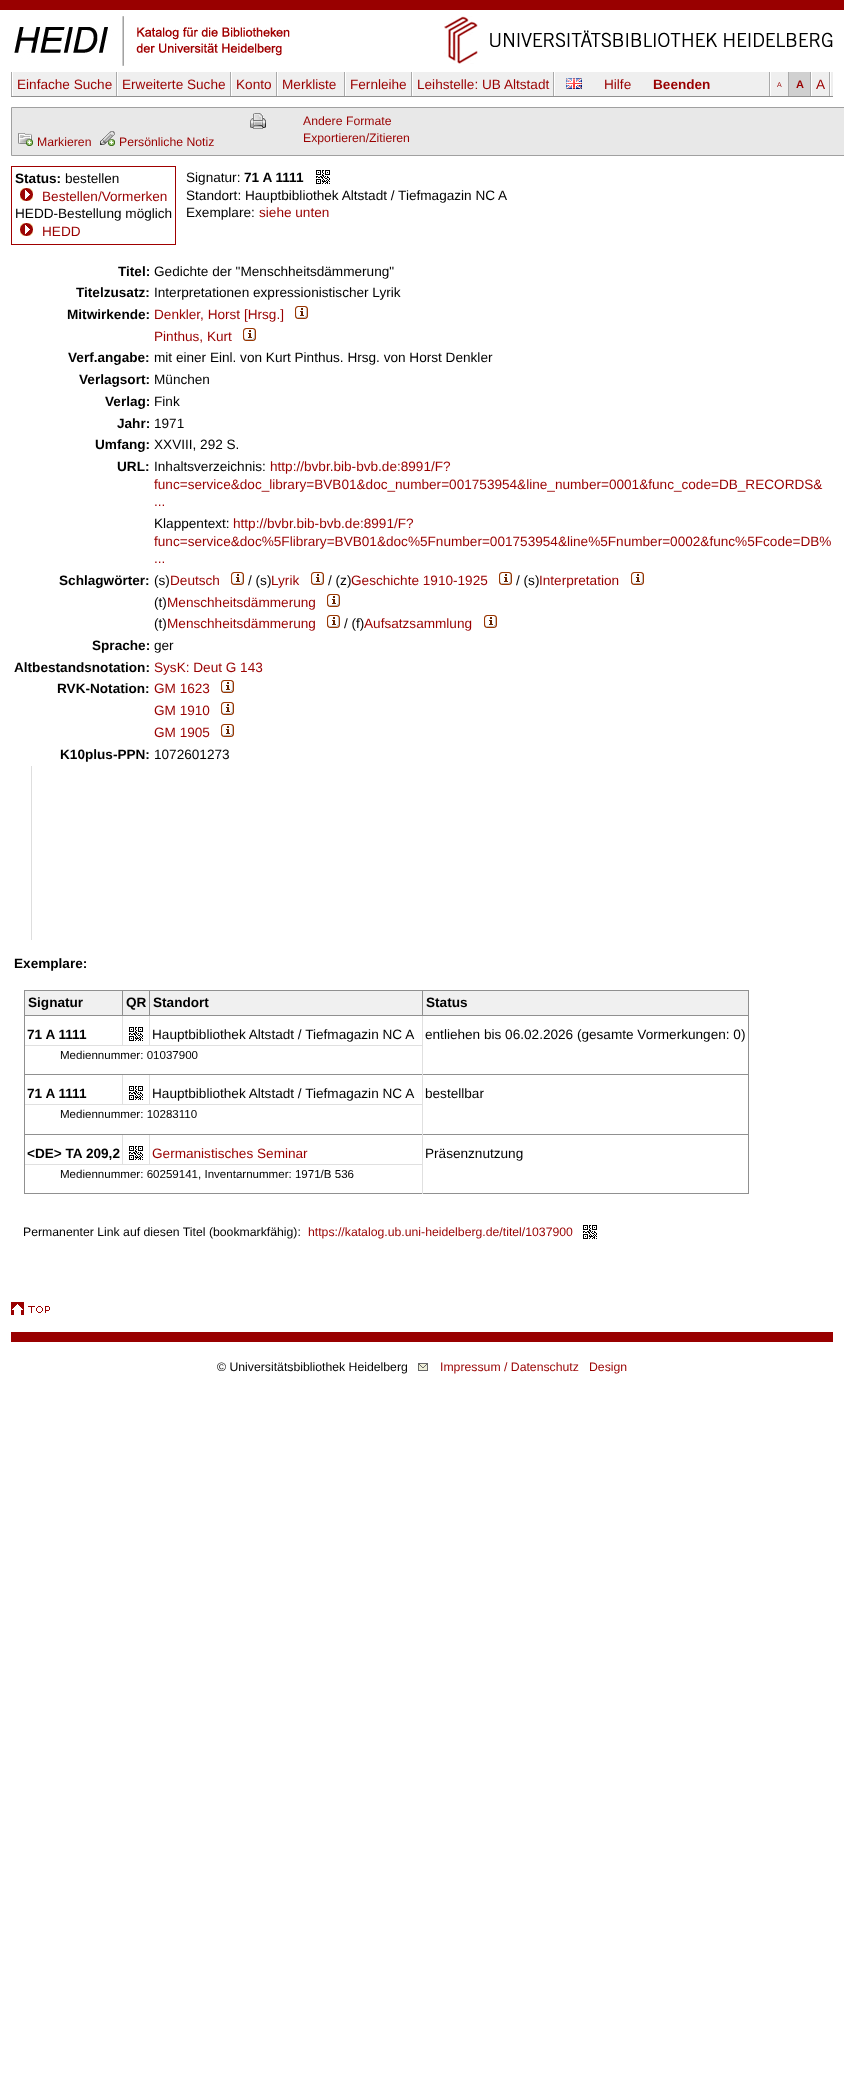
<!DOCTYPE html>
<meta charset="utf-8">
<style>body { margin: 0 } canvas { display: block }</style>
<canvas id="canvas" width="844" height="2085"></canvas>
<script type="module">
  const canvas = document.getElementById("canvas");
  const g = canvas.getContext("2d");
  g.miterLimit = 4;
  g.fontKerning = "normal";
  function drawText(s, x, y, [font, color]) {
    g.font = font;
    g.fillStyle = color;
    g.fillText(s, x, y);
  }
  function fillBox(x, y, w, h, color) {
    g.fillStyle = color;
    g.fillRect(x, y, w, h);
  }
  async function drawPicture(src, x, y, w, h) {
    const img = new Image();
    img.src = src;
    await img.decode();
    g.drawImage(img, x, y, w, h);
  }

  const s1 = ["13.6px Liberation Sans", "#990000"];
  const s2 = ["bold 13.6px Liberation Sans", "#990000"];
  const s3 = ["7px Liberation Sans", "#990000"];
  const s4 = ["bold 11px Liberation Sans", "#990000"];
  const s5 = ["12.25px Liberation Sans", "#990000"];
  const s6 = ["bold 13.6px Liberation Sans", "#000000"];
  const s7 = ["13.6px Liberation Sans", "#000000"];
  const s8 = ["11.55px Liberation Sans", "#000000"];
  const s9 = ["12.25px Liberation Sans", "#000000"];

  fillBox(0, 0, 844, 2085, "#FFFFFF");
  fillBox(0, 0, 844, 10, "#990000");
  await drawPicture("pic1.png", 14, 16, 276, 50);
  await drawPicture("pic2.png", 444, 16, 389, 48);
  fillBox(13, 72, 820, 24, "#EFEFEF");
  fillBox(11, 96, 822, 1, "#909090");
  fillBox(554, 72, 1, 24, "#FFFFFF");
  fillBox(11, 72, 1, 24, "#AAAAAA");
  fillBox(116, 72, 1, 24, "#AAAAAA");
  drawText("Einfache Suche", 17, 89, s1);
  fillBox(230, 72, 1, 24, "#AAAAAA");
  fillBox(117, 72, 1, 24, "#FFFFFF");
  drawText("Erweiterte Suche", 122, 89, s1);
  fillBox(276, 72, 1, 24, "#AAAAAA");
  fillBox(231, 72, 1, 24, "#FFFFFF");
  drawText("Konto", 236, 89, s1);
  fillBox(344, 72, 1, 24, "#AAAAAA");
  fillBox(277, 72, 1, 24, "#FFFFFF");
  drawText("Merkliste", 282, 89, s1);
  fillBox(411, 72, 1, 24, "#AAAAAA");
  fillBox(345, 72, 1, 24, "#FFFFFF");
  drawText("Fernleihe", 350, 89, s1);
  fillBox(553, 72, 1, 24, "#AAAAAA");
  fillBox(412, 72, 1, 24, "#FFFFFF");
  drawText("Leihstelle: UB Altstadt", 417, 89, s1);
  await drawPicture("pic3.png", 566, 78, 16, 11);
  drawText("Hilfe", 604, 89, s1);
  drawText("Beenden", 653, 89, s2);
  fillBox(830, 72, 1, 24, "#FFFFFF");
  fillBox(769, 72, 1, 24, "#AAAAAA");
  fillBox(788, 72, 1, 24, "#AAAAAA");
  fillBox(770, 72, 1, 24, "#FFFFFF");
  drawText("A", 777, 87, s3);
  fillBox(789, 72, 21, 24, "#D0D0D0");
  fillBox(810, 72, 1, 24, "#AAAAAA");
  drawText("A", 796, 88, s4);
  fillBox(829, 72, 1, 24, "#AAAAAA");
  fillBox(811, 72, 1, 24, "#FFFFFF");
  drawText("A", 816, 89, s1);
  g.fillStyle = "#E8E8E8";
  g.beginPath();
  g.rect(11.5, 107.5, 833, 48);
  g.fill();
  g.strokeStyle = "#A0A0A0";
  g.stroke();
  await drawPicture("pic4.png", 18, 133, 15, 13);
  drawText("Markieren", 37, 146, s5);
  await drawPicture("pic5.png", 100, 131, 15, 15);
  drawText("Persönliche Notiz", 119, 146, s5);
  await drawPicture("pic6.png", 250, 113, 16, 16);
  drawText("Andere Formate", 303, 125, s5);
  drawText("Exportieren/Zitieren", 303, 142, s5);
  g.strokeStyle = "#A00000";
  g.strokeRect(11.5, 166.5, 164, 78);
  drawText("Status:", 15, 183, s6);
  drawText("bestellen", 65, 183, s7);
  await drawPicture("pic7.png", 20, 188, 13, 13);
  drawText("Bestellen/Vormerken", 42, 201, s1);
  drawText("HEDD-Bestellung möglich", 15, 218, s7);
  await drawPicture("pic7.png", 20, 223, 13, 13);
  drawText("HEDD", 42, 236, s1);
  drawText("Signatur:", 186, 182, s7);
  drawText("71 A 1111", 244, 182, s6);
  await drawPicture("pic8.png", 316, 170, 14, 14);
  drawText("Standort: Hauptbibliothek Altstadt / Tiefmagazin NC A", 186, 200, s7);
  drawText("Exemplare:", 186, 217, s7);
  drawText("siehe unten", 259, 217, s1);
  drawText("Titel:", 118, 276, s6);
  drawText("Gedichte der \"Menschheitsdämmerung\"", 154, 276, s7);
  drawText("Titelzusatz:", 76, 297, s6);
  drawText("Interpretationen expressionistischer Lyrik", 154, 297, s7);
  drawText("Mitwirkende:", 67, 319, s6);
  drawText("Denkler, Horst [Hrsg.]", 154, 319, s1);
  await drawPicture("pic9.png", 295, 306, 13, 13);
  drawText("Pinthus, Kurt", 154, 341, s1);
  await drawPicture("pic9.png", 243, 328, 13, 13);
  drawText("Verf.angabe:", 68, 362, s6);
  drawText("mit einer Einl. von Kurt Pinthus. Hrsg. von Horst Denkler", 154, 362, s7);
  drawText("Verlagsort:", 79, 384, s6);
  drawText("München", 154, 384, s7);
  drawText("Verlag:", 105, 406, s6);
  drawText("Fink", 154, 406, s7);
  drawText("Jahr:", 117, 428, s6);
  drawText("1971", 154, 428, s7);
  drawText("Umfang:", 95, 449, s6);
  drawText("XXVIII, 292 S.", 154, 449, s7);
  drawText("URL:", 117, 471, s6);
  drawText("Inhaltsverzeichnis:", 154, 471, s7);
  drawText("http://bvbr.bib-bvb.de:8991/F?", 270, 471, s1);
  drawText("func=service&doc_library=BVB01&doc_number=001753954&line_number=0001&func_code=DB_RECORDS&", 154, 489, s1);
  drawText("...", 154, 506, s1);
  drawText("Klappentext:", 154, 528, s7);
  drawText("http://bvbr.bib-bvb.de:8991/F?", 233, 528, s1);
  drawText("func=service&doc%5Flibrary=BVB01&doc%5Fnumber=001753954&line%5Fnumber=0002&func%5Fcode=DB%", 154, 546, s1);
  drawText("...", 154, 563, s1);
  drawText("Schlagwörter:", 59, 585, s6);
  drawText("(s)", 154, 585, s7);
  drawText("Deutsch", 170, 585, s1);
  await drawPicture("pic9.png", 231, 572, 13, 13);
  drawText("/ (s)", 248, 585, s7);
  drawText("Lyrik", 271, 585, s1);
  await drawPicture("pic9.png", 311, 572, 13, 13);
  drawText("/ (z)", 328, 585, s7);
  drawText("Geschichte 1910-1925", 351, 585, s1);
  await drawPicture("pic9.png", 499, 572, 13, 13);
  drawText("/ (s)", 516, 585, s7);
  drawText("Interpretation", 539, 585, s1);
  await drawPicture("pic9.png", 631, 572, 13, 13);
  drawText("(t)", 154, 607, s7);
  drawText("Menschheitsdämmerung", 167, 607, s1);
  await drawPicture("pic9.png", 327, 594, 13, 13);
  drawText("(t)", 154, 628, s7);
  drawText("Menschheitsdämmerung", 167, 628, s1);
  await drawPicture("pic9.png", 327, 615, 13, 13);
  drawText("/ (f)", 344, 628, s7);
  drawText("Aufsatzsammlung", 364, 628, s1);
  await drawPicture("pic9.png", 484, 615, 13, 13);
  drawText("Sprache:", 92, 650, s6);
  drawText("ger", 154, 650, s7);
  drawText("Altbestandsnotation:", 14, 672, s6);
  drawText("SysK: Deut G 143", 154, 672, s1);
  drawText("RVK-Notation:", 57, 693, s6);
  drawText("GM 1623", 154, 693, s1);
  await drawPicture("pic9.png", 221, 680, 13, 13);
  drawText("GM 1910", 154, 715, s1);
  await drawPicture("pic9.png", 221, 702, 13, 13);
  drawText("GM 1905", 154, 737, s1);
  await drawPicture("pic9.png", 221, 724, 13, 13);
  drawText("K10plus-PPN:", 60, 759, s6);
  drawText("1072601273", 154, 759, s7);
  fillBox(31, 766, 1, 174, "#DEDEDE");
  drawText("Exemplare:", 14, 968, s6);
  fillBox(24, 990, 725, 1, "#909090");
  fillBox(748, 990, 1, 25, "#909090");
  fillBox(24, 1193, 725, 1, "#909090");
  fillBox(24, 990, 1, 25, "#909090");
  fillBox(25, 991, 723, 24, "#F0F0F0");
  fillBox(123, 1045, 300, 1, "#E0E0E0");
  fillBox(122, 1074, 1, 31, "#E0E0E0");
  fillBox(122, 1134, 1, 31, "#E0E0E0");
  fillBox(24, 1164, 1, 30, "#909090");
  fillBox(24, 1164, 99, 1, "#E0E0E0");
  fillBox(24, 1134, 1, 31, "#909090");
  fillBox(123, 1164, 300, 1, "#E0E0E0");
  fillBox(149, 1134, 1, 31, "#E0E0E0");
  fillBox(748, 1015, 1, 179, "#909090");
  fillBox(422, 1134, 1, 60, "#E0E0E0");
  fillBox(24, 1134, 725, 1, "#909090");
  fillBox(24, 1104, 1, 31, "#909090");
  fillBox(24, 1104, 99, 1, "#E0E0E0");
  fillBox(24, 1074, 1, 31, "#909090");
  fillBox(123, 1104, 300, 1, "#E0E0E0");
  fillBox(149, 1074, 1, 31, "#E0E0E0");
  fillBox(422, 1074, 1, 61, "#E0E0E0");
  fillBox(24, 1074, 725, 1, "#909090");
  fillBox(422, 1015, 1, 60, "#E0E0E0");
  fillBox(422, 1015, 327, 1, "#909090");
  fillBox(422, 990, 1, 26, "#909090");
  fillBox(149, 1015, 1, 31, "#E0E0E0");
  fillBox(149, 1015, 274, 1, "#909090");
  fillBox(149, 990, 1, 26, "#909090");
  fillBox(122, 1015, 1, 31, "#E0E0E0");
  fillBox(122, 1015, 28, 1, "#909090");
  fillBox(122, 990, 1, 26, "#909090");
  fillBox(24, 1045, 1, 30, "#909090");
  fillBox(24, 1045, 99, 1, "#E0E0E0");
  fillBox(24, 1015, 1, 31, "#909090");
  fillBox(24, 1015, 99, 1, "#909090");
  drawText("Signatur", 28, 1007, s6);
  drawText("QR", 126, 1007, s6);
  drawText("Standort", 153, 1007, s6);
  drawText("Status", 426, 1007, s6);
  drawText("71 A 1111", 27, 1039, s6);
  await drawPicture("pic8.png", 129, 1027, 14, 14);
  drawText("Hauptbibliothek Altstadt / Tiefmagazin NC A", 152, 1039, s7);
  drawText("entliehen bis 06.02.2026 (gesamte Vormerkungen: 0)", 425, 1039, s7);
  drawText("Mediennummer: 01037900", 60, 1059, s8);
  drawText("71 A 1111", 27, 1098, s6);
  await drawPicture("pic8.png", 129, 1086, 14, 14);
  drawText("Hauptbibliothek Altstadt / Tiefmagazin NC A", 152, 1098, s7);
  drawText("bestellbar", 425, 1098, s7);
  drawText("Mediennummer: 10283110", 60, 1118, s8);
  drawText("<DE> TA 209,2", 27, 1158, s6);
  await drawPicture("pic8.png", 129, 1146, 14, 14);
  drawText("Germanistisches Seminar", 152, 1158, s1);
  drawText("Präsenznutzung", 425, 1158, s7);
  drawText("Mediennummer: 60259141, Inventarnummer: 1971/B 536", 60, 1178, s8);
  drawText("Permanenter Link auf diesen Titel (bookmarkfähig):", 23, 1236, s9);
  drawText("https://katalog.ub.uni-heidelberg.de/titel/1037900", 308, 1236, s5);
  await drawPicture("pic8.png", 583, 1225, 14, 14);
  await drawPicture("pic10.png", 11, 1302, 39, 13);
  fillBox(11, 1332, 822, 10, "#990000");
  drawText("© Universitätsbibliothek Heidelberg", 217, 1371, s9);
  await drawPicture("pic11.png", 418, 1363, 10, 8);
  drawText("Impressum / Datenschutz", 440, 1371, s5);
  drawText("Design", 589, 1371, s5);
</script>
